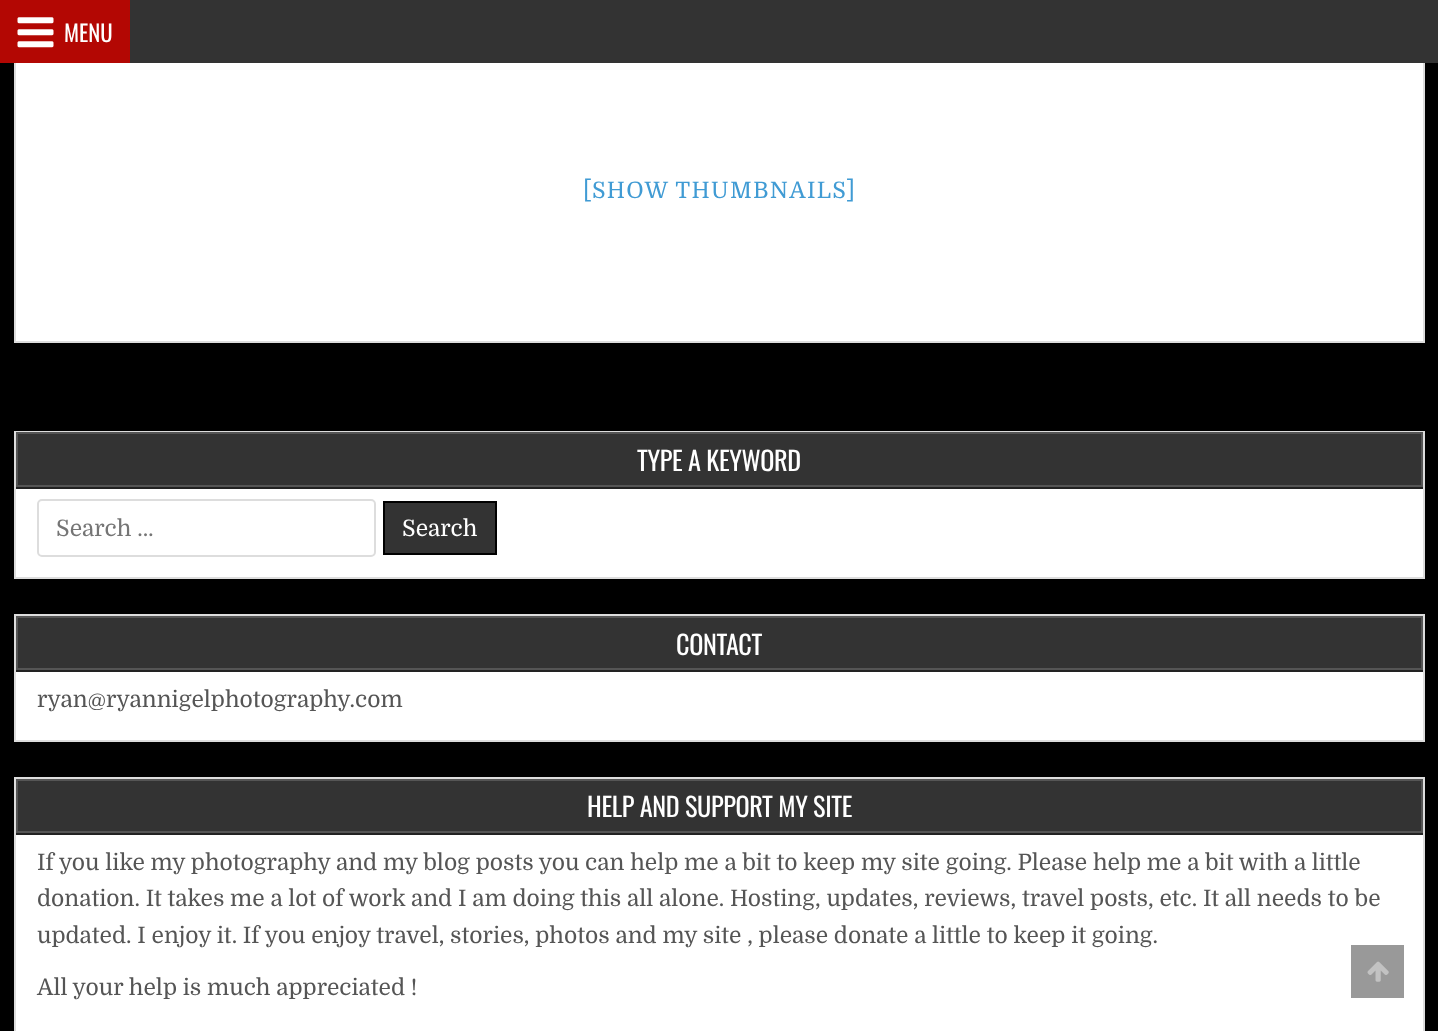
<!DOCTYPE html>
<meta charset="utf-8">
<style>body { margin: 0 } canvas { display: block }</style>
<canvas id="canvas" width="1438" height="1031"></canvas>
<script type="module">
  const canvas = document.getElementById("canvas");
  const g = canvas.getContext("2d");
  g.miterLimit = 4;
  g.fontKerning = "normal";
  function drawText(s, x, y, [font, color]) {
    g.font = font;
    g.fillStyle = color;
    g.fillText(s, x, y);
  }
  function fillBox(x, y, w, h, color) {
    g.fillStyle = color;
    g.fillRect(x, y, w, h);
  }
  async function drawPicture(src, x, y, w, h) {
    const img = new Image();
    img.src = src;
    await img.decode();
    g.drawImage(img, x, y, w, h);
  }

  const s1 = ["22.75px Oswald", "#FFFFFF"];
  const s2 = ["22.75px Domine", "#409BD4"];
  const s3 = ["26.25px Oswald", "#FFFFFF"];
  const s4 = ["22.75px Domine", "#757575"];
  const s5 = ["22.75px Domine", "#FFFFFF"];
  const s6 = ["22.75px Domine", "#555555"];

  fillBox(0, 0, 1438, 1031, "#000000");
  fillBox(16, 63, 1407, 278, "#FFFFFF");
  g.strokeStyle = "#DDDDDD";
  g.lineWidth = 2;
  g.strokeRect(15, -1, 1409, 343);
  fillBox(130, 0, 1308, 63, "#333333");
  fillBox(0, 0, 130, 63, "#B30703");
  await drawPicture("pic1.png", 17, 17, 37, 31);
  drawText("MENU", 64, 42, s1);
  g.letterSpacing = "1.3px";
  drawText("[SHOW THUMBNAILS]", 583, 198, s2);
  fillBox(16, 489, 1407, 88, "#FFFFFF");
  g.strokeRect(15, 432, 1409, 146);
  fillBox(16, 487, 1407, 2, "#222222");
  g.fillStyle = "#333333";
  g.beginPath();
  g.rect(17, 433, 1405, 53);
  g.fill();
  g.strokeStyle = "#555555";
  g.stroke();
  g.letterSpacing = "-0.35px";
  drawText("TYPE A KEYWORD", 637, 471, s3);
  g.beginPath();
  g.roundRect(38, 500, 337, 56, 4);
  g.strokeStyle = "#DDDDDD";
  g.stroke();
  g.letterSpacing = "0px";
  drawText("Search …", 56, 536, s4);
  g.fillStyle = "#333333";
  g.beginPath();
  g.rect(384, 502, 112, 52);
  g.fill();
  g.strokeStyle = "#000000";
  g.stroke();
  drawText("Search", 402, 536, s5);
  fillBox(16, 672, 1407, 68, "#FFFFFF");
  g.strokeStyle = "#DDDDDD";
  g.strokeRect(15, 615, 1409, 126);
  fillBox(16, 670, 1407, 2, "#222222");
  g.fillStyle = "#333333";
  g.beginPath();
  g.rect(17, 617, 1405, 52);
  g.fill();
  g.strokeStyle = "#555555";
  g.stroke();
  g.letterSpacing = "-0.35px";
  drawText("CONTACT", 676, 655, s3);
  g.letterSpacing = "0px";
  drawText("ryan@ryannigelphotography.com", 37, 707, s6);
  fillBox(16, 835, 1407, 196, "#FFFFFF");
  g.strokeStyle = "#DDDDDD";
  g.strokeRect(15, 778, 1409, 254);
  fillBox(16, 833, 1407, 2, "#222222");
  g.fillStyle = "#333333";
  g.beginPath();
  g.rect(17, 780, 1405, 52);
  g.fill();
  g.strokeStyle = "#555555";
  g.stroke();
  g.letterSpacing = "-0.35px";
  drawText("HELP AND SUPPORT MY SITE", 587, 817, s3);
  g.letterSpacing = "0px";
  drawText("If you like my photography and my blog posts you can help me a bit to keep my site going. Please help me a bit with a little", 37, 870, s6);
  drawText("donation. It takes me a lot of work and I am doing this all alone. Hosting, updates, reviews, travel posts, etc. It all needs to be", 37, 906, s6);
  drawText("updated. I enjoy it. If you enjoy travel, stories, photos and my site , please donate a little to keep it going.", 37, 943, s6);
  drawText("All your help is much appreciated !", 37, 995, s6);
  fillBox(1351, 945, 53, 53, "#999999");
  await drawPicture("pic2.png", 1367, 961, 22, 21);
</script>
